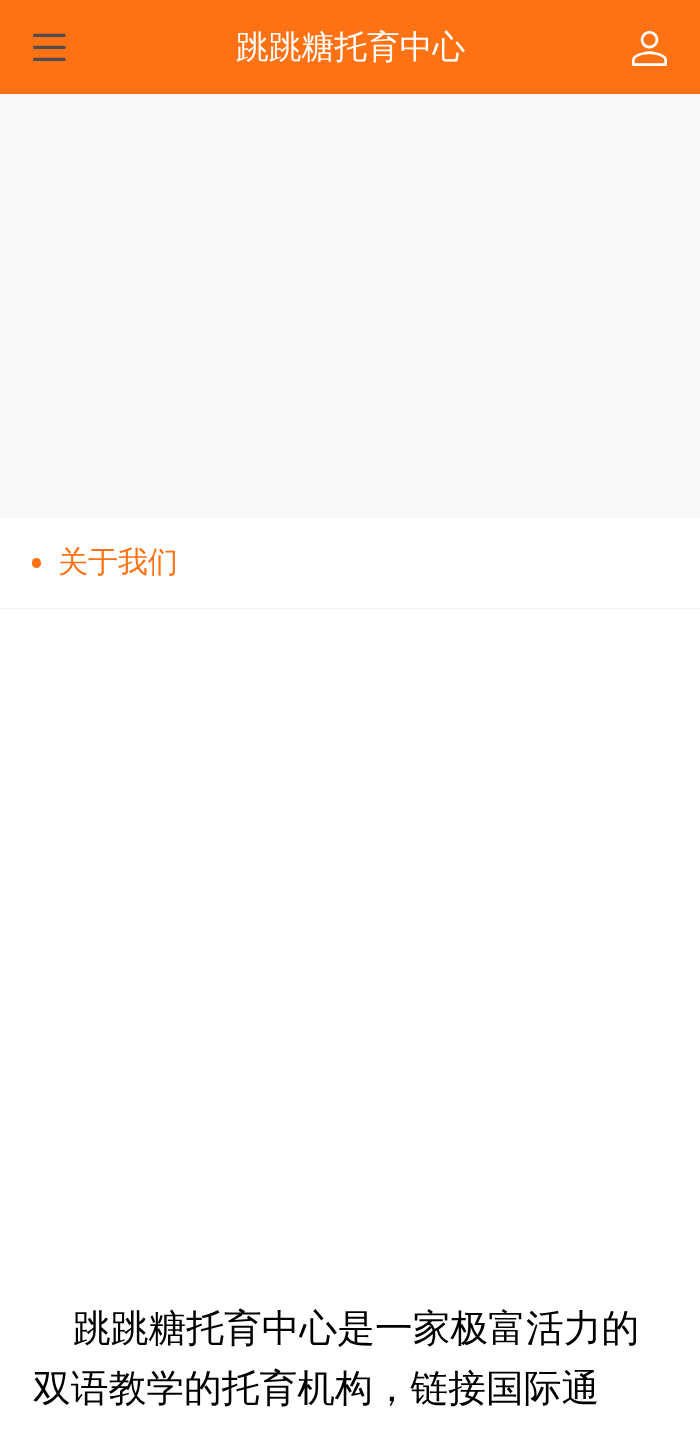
<!DOCTYPE html>
<meta charset="utf-8">
<style>body { margin: 0 } canvas { display: block }</style>
<canvas id="canvas" width="700" height="1442"></canvas>
<script type="module">
  const canvas = document.getElementById("canvas");
  const g = canvas.getContext("2d");
  g.miterLimit = 4;
  g.fontKerning = "none";
  function drawText(s, x, y, [font, color]) {
    g.font = font;
    g.fillStyle = color;
    g.fillText(s, x, y);
  }
  function fillBox(x, y, w, h, color) {
    g.fillStyle = color;
    g.fillRect(x, y, w, h);
  }
  function fillRounded(x, y, w, h, r, color) {
    g.fillStyle = color;
    g.beginPath();
    g.roundRect(x, y, w, h, r);
    g.fill();
  }

  const s1 = ["32.75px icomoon", "#4D4D4D"];
  const s2 = ["500 32.75px WenQuanYi Zen Hei", "#FFFFFF"];
  const s3 = ["35px icomoon", "#FFFFFF"];
  const s4 = ["500 30px WenQuanYi Zen Hei", "#FF7214"];
  const s5 = ["500 37.75px WenQuanYi Zen Hei", "#000000"];

  fillBox(0, 0, 700, 1442, "#F8F8F8");
  fillBox(0, 0, 700, 94, "#FF7214");
  drawText("򰌲", 33, 61, s1);
  drawText("跳跳糖托育中心", 236, 58, s2);
  drawText("򰊈", 632, 63, s3);
  fillBox(0, 518, 700, 90, "#FFFFFF");
  fillBox(0, 608, 700, 1, "#F3F3F3");
  fillRounded(32, 558, 9, 10, 4.5, "#FF7214");
  drawText("关于我们", 58, 572, s4);
  fillBox(0, 609, 700, 833, "#FFFFFF");
  drawText("跳跳糖托育中心是一家极富活力的", 73, 1341, s5);
  drawText("双语教学的托育机构，链接国际通", 33, 1401, s5);
</script>
